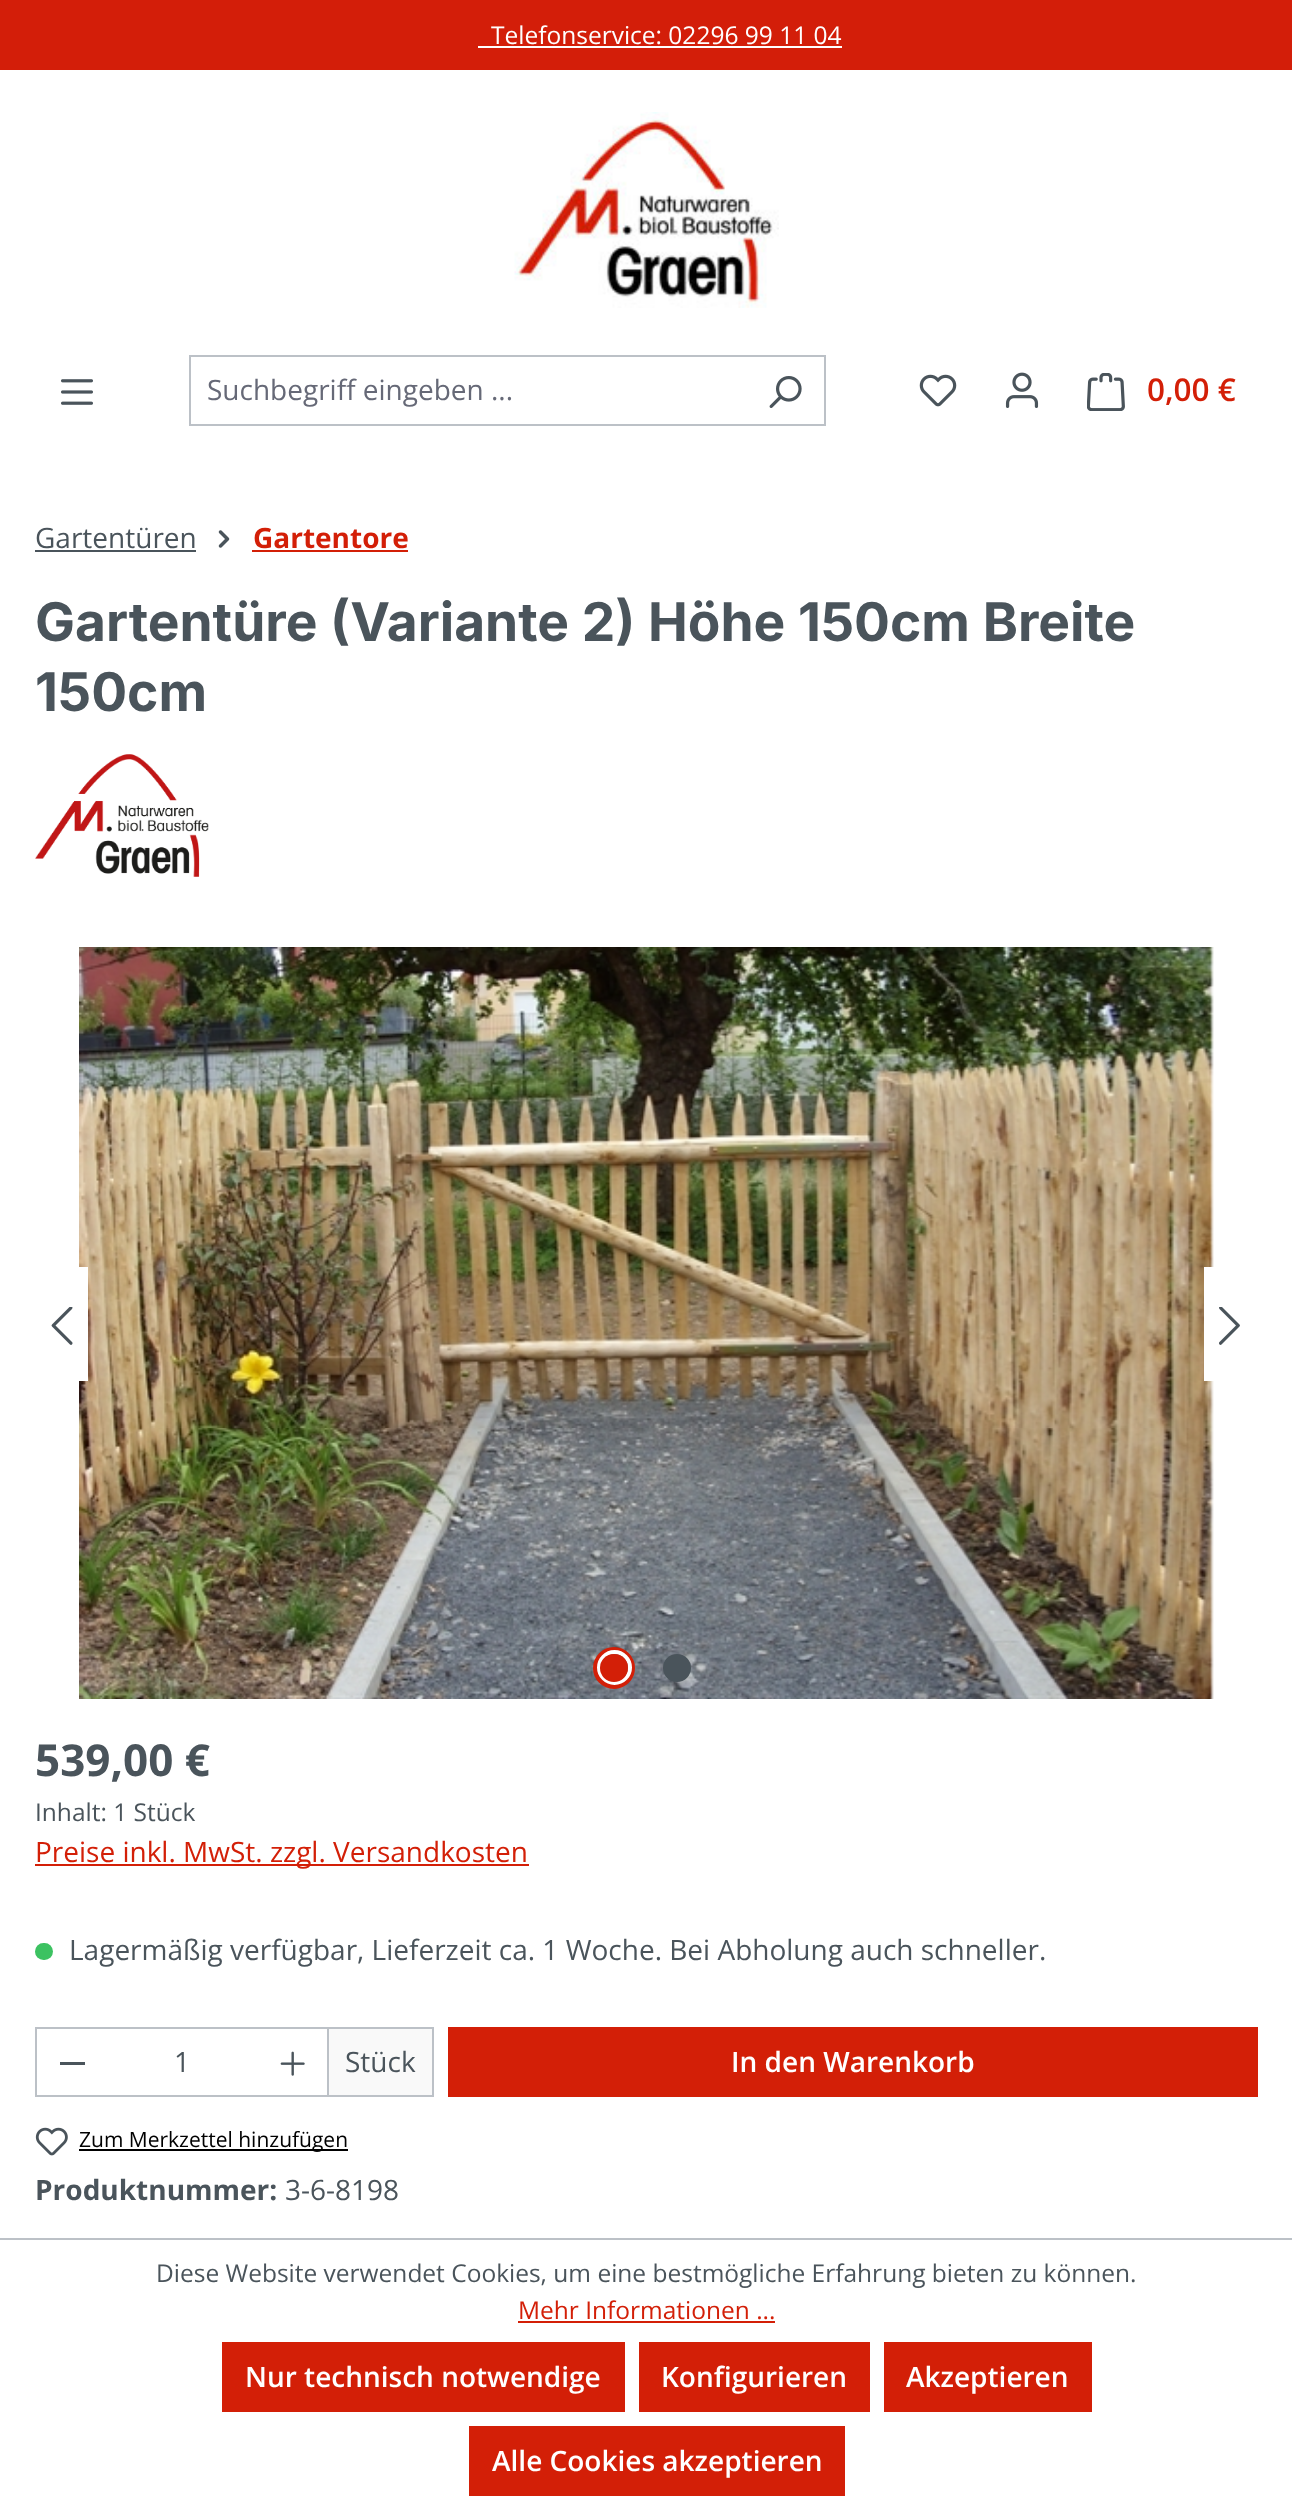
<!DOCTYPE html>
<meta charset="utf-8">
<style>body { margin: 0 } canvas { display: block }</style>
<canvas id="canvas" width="1292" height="2509"></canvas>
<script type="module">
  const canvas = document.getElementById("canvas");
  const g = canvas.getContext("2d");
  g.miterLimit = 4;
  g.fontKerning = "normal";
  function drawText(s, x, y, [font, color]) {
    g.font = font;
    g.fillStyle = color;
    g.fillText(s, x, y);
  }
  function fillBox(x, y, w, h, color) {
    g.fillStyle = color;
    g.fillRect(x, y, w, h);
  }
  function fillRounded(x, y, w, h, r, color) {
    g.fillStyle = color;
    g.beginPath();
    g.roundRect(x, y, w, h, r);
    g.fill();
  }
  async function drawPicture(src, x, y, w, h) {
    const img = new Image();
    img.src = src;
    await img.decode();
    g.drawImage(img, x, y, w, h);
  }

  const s1 = ["24.5px Open Sans", "#FFFFFF"];
  const s2 = ["28px Open Sans", "#666977"];
  const s3 = ["600 31.5px Open Sans", "#D31F07"];
  const s4 = ["28px Open Sans", "#4A545B"];
  const s5 = ["bold 28px Open Sans", "#D31F07"];
  const s6 = ["bold 53.3px Inter", "#4A545B"];
  const s7 = ["bold 44px Open Sans", "#4A545B"];
  const s8 = ["24.5px Open Sans", "#4A545B"];
  const s9 = ["28px Open Sans", "#D31F07"];
  const s10 = ["600 28px Open Sans", "#FFFFFF"];
  const s11 = ["21px Open Sans", "#000000"];
  const s12 = ["bold 28px Open Sans", "#4A545B"];
  const s13 = ["24.5px Open Sans", "#D31F07"];

  fillBox(0, 0, 1292, 2509, "#FFFFFF");
  fillBox(0, 0, 1292, 70, "#D31E09");
  drawText("Telefonservice: 02296 99 11 04", 491, 44, s1);
  fillBox(478, 46, 364, 2, "#FFFFFF");
  await drawPicture("pic1.png", 514, 112, 265, 196);
  await drawPicture("pic2.png", 61, 379, 32, 26);
  fillBox(189, 355, 637, 2, "#BCC1C7");
  fillBox(189, 424, 557, 2, "#BCC1C7");
  fillBox(189, 355, 2, 70, "#BCC1C7");
  drawText("Suchbegriff eingeben ...", 207, 400, s2);
  fillBox(824, 355, 2, 70, "#BCC1C7");
  fillBox(744, 424, 82, 2, "#BCC1C7");
  await drawPicture("pic3.png", 769, 376, 33, 32);
  await drawPicture("pic4.png", 919, 374, 38, 33);
  await drawPicture("pic5.png", 1005, 372, 34, 36);
  await drawPicture("pic6.png", 1087, 373, 38, 38);
  drawText("0,00 €", 1147, 401, s3);
  drawText("Gartentüren", 35, 548, s4);
  fillBox(35, 550, 161, 2, "#4A545B");
  await drawPicture("pic7.png", 218, 530, 12, 18);
  drawText("Gartentore", 253, 548, s5);
  fillBox(252, 550, 156, 2, "#D31F07");
  drawText("Gartentüre (Variante 2) Höhe 150cm Breite", 35, 641, s6);
  drawText("150cm", 35, 711, s6);
  await drawPicture("pic8.png", 35, 754, 174, 123);
  await drawPicture("pic9.png", 79, 947, 1135, 752);
  fillBox(79, 1267, 9, 114, "#FFFFFF");
  g.save();
  g.beginPath();
  g.rect(42, 1307, 39, 39);
  g.clip();
  g.fillStyle = "#4A545B";
  g.beginPath();
  g.moveTo(55.5, 1325.5);
  g.lineTo(72, 1342);
  g.bezierCurveTo(73, 1343, 72.5, 1344.5, 71, 1345);
  g.lineTo(70, 1344.5);
  g.lineTo(52, 1326.5);
  g.lineTo(51.5, 1325.5);
  g.lineTo(52, 1324.5);
  g.lineTo(70, 1306.5);
  g.lineTo(71, 1306.5);
  g.bezierCurveTo(72.5, 1306.5, 73, 1308, 72, 1309);
  g.closePath();
  g.fill("evenodd");
  g.restore();
  fillBox(1204, 1267, 10, 114, "#FFFFFF");
  g.save();
  g.beginPath();
  g.rect(1211, 1307, 39, 39);
  g.clip();
  g.fillStyle = "#4A545B";
  g.beginPath();
  g.moveTo(1236, 1325.5);
  g.lineTo(1219.5, 1342);
  g.bezierCurveTo(1218.5, 1343, 1219, 1344.5, 1220.5, 1345);
  g.lineTo(1221.5, 1344.5);
  g.lineTo(1239.5, 1326.5);
  g.lineTo(1240, 1325.5);
  g.lineTo(1239.5, 1324.5);
  g.lineTo(1221.5, 1306.5);
  g.lineTo(1220.5, 1306.5);
  g.bezierCurveTo(1219, 1306.5, 1218.5, 1308, 1219.5, 1309);
  g.closePath();
  g.fill("evenodd");
  g.restore();
  g.beginPath();
  g.arc(614, 1668, 17.5, 0, Math.PI * 2);
  g.strokeStyle = "#D31F07";
  g.lineWidth = 7;
  g.stroke();
  g.beginPath();
  g.arc(614.5, 1667.5, 15.5, 0, Math.PI * 2);
  g.strokeStyle = "#FFFFFF";
  g.lineWidth = 4;
  g.stroke();
  g.fillStyle = "#D31F07";
  g.beginPath();
  g.arc(614, 1668, 14, 0, Math.PI * 2);
  g.fill();
  g.fillStyle = "#4A545B";
  g.beginPath();
  g.arc(677, 1668, 14, 0, Math.PI * 2);
  g.fill();
  drawText("539,00 €", 35, 1776, s7);
  drawText("Inhalt: 1 Stück", 35, 1821, s8);
  fillBox(35, 1864, 494, 2, "#D31F07");
  drawText("Preise inkl. MwSt. zzgl. Versandkosten", 35, 1862, s9);
  fillRounded(35, 1943, 18, 17, 8.5, "#3CC261");
  drawText("Lagermäßig verfügbar, Lieferzeit ca. 1 Woche. Bei Abholung auch schneller.", 69, 1960, s4);
  g.fillStyle = "#F9F9F9";
  g.beginPath();
  g.rect(328, 2028, 105, 68);
  g.fill();
  g.strokeStyle = "#BCC1C7";
  g.lineWidth = 2;
  g.stroke();
  fillBox(35, 2027, 294, 2, "#BCC1C7");
  fillBox(35, 2095, 294, 2, "#BCC1C7");
  fillBox(35, 2027, 2, 70, "#BCC1C7");
  fillBox(60, 2062, 25, 3, "#4A545B");
  drawText("1", 174, 2072, s4);
  await drawPicture("pic10.png", 280, 2051, 25, 25);
  drawText("Stück", 345, 2072, s4);
  fillBox(448, 2027, 810, 70, "#D31F07");
  drawText("In den Warenkorb", 731, 2072, s10);
  await drawPicture("pic11.png", 35, 2127, 33, 29);
  fillBox(79, 2149, 269, 2, "#000000");
  drawText("Zum Merkzettel hinzufügen", 79, 2147, s11);
  drawText("Produktnummer:", 35, 2200, s12);
  drawText("3-6-8198", 285, 2200, s4);
  fillBox(0, 2238, 1292, 2, "#BCC1C7");
  drawText("Diese Website verwendet Cookies, um eine bestmögliche Erfahrung bieten zu können.", 156, 2282, s8);
  drawText("Mehr Informationen ...", 518, 2319, s13);
  fillBox(518, 2321, 257, 2, "#D31F07");
  fillBox(222, 2342, 403, 70, "#D31F07");
  drawText("Nur technisch notwendige", 245, 2387, s10);
  fillBox(639, 2342, 231, 70, "#D31F07");
  drawText("Konfigurieren", 661, 2387, s10);
  fillBox(884, 2342, 208, 70, "#D31F07");
  drawText("Akzeptieren", 906, 2387, s10);
  fillBox(469, 2426, 376, 70, "#D31F07");
  drawText("Alle Cookies akzeptieren", 492, 2471, s10);
</script>
